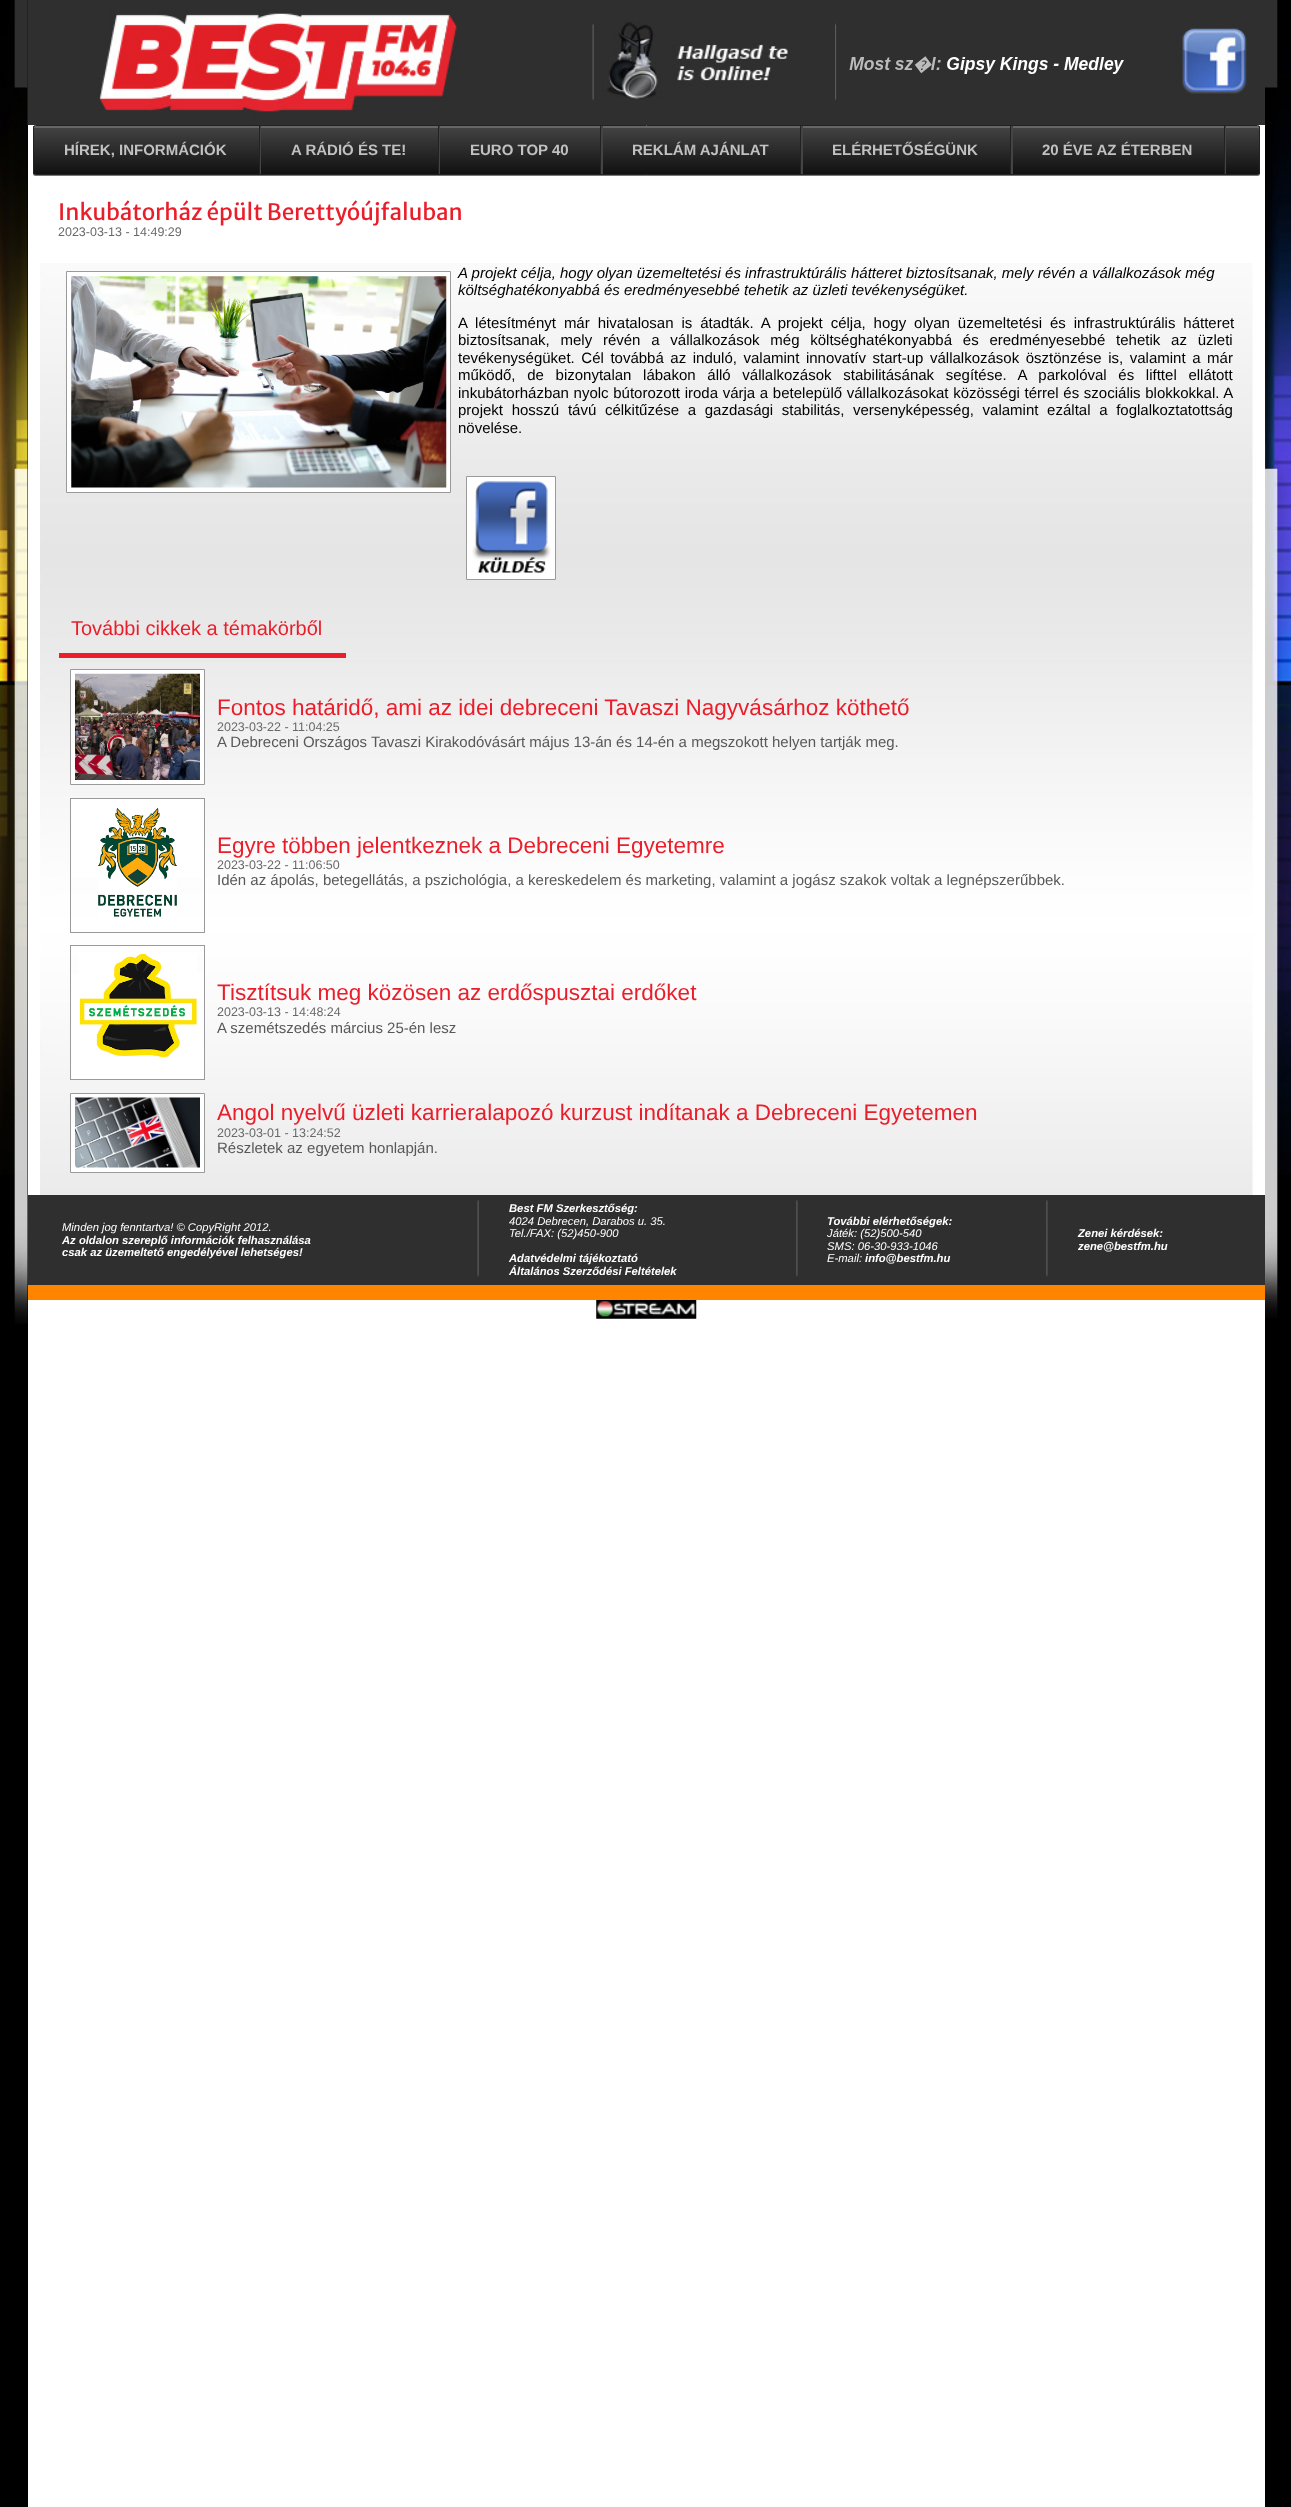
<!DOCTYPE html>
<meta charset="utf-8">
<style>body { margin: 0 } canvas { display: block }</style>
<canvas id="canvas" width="1291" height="2507"></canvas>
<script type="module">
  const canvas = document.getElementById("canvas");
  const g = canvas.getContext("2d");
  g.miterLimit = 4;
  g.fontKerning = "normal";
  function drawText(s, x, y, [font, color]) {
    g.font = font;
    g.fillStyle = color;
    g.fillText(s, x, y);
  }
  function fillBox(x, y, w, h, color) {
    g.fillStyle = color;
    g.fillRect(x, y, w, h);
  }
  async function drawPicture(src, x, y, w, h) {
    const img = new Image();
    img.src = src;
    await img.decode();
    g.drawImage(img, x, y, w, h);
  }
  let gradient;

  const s1 = ["bold 15px Liberation Sans", "#C1C1C1"];
  const s2 = ["22.5px Merriweather Sans", "#EA1E2A"];
  const s3 = ["12.5px Liberation Sans", "#696969"];
  const s4 = ["italic 15px Liberation Sans", "#000000"];
  const s5 = ["15px Liberation Sans", "#000000"];
  const s6 = ["20px Liberation Sans", "#EA1E2A"];
  const s7 = ["22.5px Liberation Sans", "#EA1E2A"];
  const s8 = ["15px Liberation Sans", "#585858"];
  const s9 = ["italic 11.25px Liberation Sans", "#FFFFFF"];
  const s10 = ["italic bold 11.25px Liberation Sans", "#FFFFFF"];

  fillBox(0, 0, 1291, 2507, "#FFFFFF");
  fillBox(0, 0, 28, 2507, "#000000");
  await drawPicture("pic1.png", 0, 0, 28, 1324);
  fillBox(458, 0, 807, 125, "#2F2F2F");
  g.fillStyle = "#777777";
  g.filter = "blur(0.5px)";
  g.beginPath();
  g.roundRect(33, 126, 1227, 50, 2.5);
  g.fill();
  g.filter = "none";
  await drawPicture("pic2.png", 27, 0, 431, 125);
  await drawPicture("pic3.png", 592, 22, 196, 78);
  await drawPicture("pic4.png", 835, 23, 2, 77);
  await drawPicture("pic5.png", 836, 24, 288, 76);
  await drawPicture("pic6.png", 1175, 28, 72, 69);
  g.save();
  g.beginPath();
  g.roundRect(33, 125, 1227, 50, 2.5);
  g.clip();
  gradient = g.createLinearGradient(646, 126, 646, 174);
  gradient.addColorStop(0, "#444444");
  gradient.addColorStop(1, "#111111");
  g.fillStyle = gradient;
  g.fillRect(33, 126, 1227, 48);
  g.restore();
  g.fillStyle = "#666666";
  g.beginPath();
  g.moveTo(35, 128);
  g.lineTo(1258, 128);
  g.lineTo(1259, 129);
  g.lineTo(1259, 126);
  g.lineTo(1258, 126);
  g.lineTo(35, 126);
  g.lineTo(34, 127);
  g.lineTo(34, 129);
  g.bezierCurveTo(34, 128, 34, 128, 35, 128);
  g.closePath();
  g.fill();
  g.beginPath();
  g.roundRect(33.5, 125.5, 1226, 49, 2);
  g.strokeStyle = "#222222";
  g.stroke();
  g.fillStyle = "#444444";
  g.beginPath();
  g.moveTo(35, 126);
  g.lineTo(260, 126);
  g.lineTo(260, 174);
  g.lineTo(35, 174);
  g.lineTo(261, 174);
  g.lineTo(261, 126);
  g.closePath();
  g.fill();
  fillBox(259, 126, 1, 48, "#222222");
  drawText("HÍREK, INFORMÁCIÓK", 64, 155, s1);
  g.fillStyle = "#444444";
  g.beginPath();
  g.moveTo(261, 126);
  g.lineTo(439, 126);
  g.lineTo(439, 174);
  g.lineTo(261, 174);
  g.lineTo(440, 174);
  g.lineTo(440, 126);
  g.closePath();
  g.fill();
  fillBox(438, 126, 1, 48, "#222222");
  drawText("A RÁDIÓ ÉS TE!", 291, 155, s1);
  g.fillStyle = "#444444";
  g.beginPath();
  g.moveTo(440, 126);
  g.lineTo(601, 126);
  g.lineTo(601, 174);
  g.lineTo(440, 174);
  g.lineTo(603, 174);
  g.lineTo(603, 126);
  g.closePath();
  g.fill();
  fillBox(600, 126, 1, 48, "#222222");
  drawText("EURO TOP 40", 470, 155, s1);
  g.fillStyle = "#444444";
  g.beginPath();
  g.moveTo(603, 126);
  g.lineTo(801, 126);
  g.lineTo(801, 174);
  g.lineTo(603, 174);
  g.lineTo(803, 174);
  g.lineTo(803, 126);
  g.closePath();
  g.fill();
  fillBox(800, 126, 1, 48, "#222222");
  drawText("REKLÁM AJÁNLAT", 632, 155, s1);
  g.fillStyle = "#444444";
  g.beginPath();
  g.moveTo(803, 126);
  g.lineTo(1011, 126);
  g.lineTo(1011, 174);
  g.lineTo(803, 174);
  g.lineTo(1013, 174);
  g.lineTo(1013, 126);
  g.closePath();
  g.fill();
  fillBox(1010, 126, 1, 48, "#222222");
  drawText("ELÉRHETŐSÉGÜNK", 832, 155, s1);
  g.fillStyle = "#444444";
  g.beginPath();
  g.moveTo(1013, 126);
  g.lineTo(1225, 126);
  g.lineTo(1225, 174);
  g.lineTo(1013, 174);
  g.lineTo(1226, 174);
  g.lineTo(1226, 126);
  g.closePath();
  g.fill();
  fillBox(1224, 126, 1, 48, "#222222");
  drawText("20 ÉVE AZ ÉTERBEN", 1042, 155, s1);
  await drawPicture("pic7.png", 40, 263, 1213, 932);
  drawText("Inkubátorház épült Berettyóújfaluban", 58, 220, s2);
  drawText("2023-03-13 - 14:49:29", 58, 236, s3);
  g.fillStyle = "#FFFFFF";
  g.beginPath();
  g.rect(66.5, 271.5, 384, 221);
  g.fill();
  g.strokeStyle = "#9A9A9A";
  g.stroke();
  await drawPicture("pic8.png", 71, 276, 376, 212);
  drawText("A projekt célja, hogy olyan üzemeltetési és infrastruktúrális hátteret biztosítsanak, mely révén a vállalkozások még", 458, 278, s4);
  drawText("költséghatékonyabbá és eredményesebbé tehetik az üzleti tevékenységüket.", 458, 295, s4);
  g.wordSpacing = "3.75px";
  drawText("A létesítményt már hivatalosan is átadták. A projekt célja, hogy olyan üzemeltetési és infrastruktúrális hátteret", 458, 328, s5);
  g.wordSpacing = "6.6px";
  drawText("biztosítsanak, mely révén a vállalkozások még költséghatékonyabbá és eredményesebbé tehetik az üzleti", 458, 345, s5);
  g.wordSpacing = "2.4px";
  drawText("tevékenységüket. Cél továbbá az induló, valamint innovatív start-up vállalkozások ösztönzése is, valamint a már", 458, 363, s5);
  g.wordSpacing = "7.5px";
  drawText("működő, de bizonytalan lábakon álló vállalkozások stabilitásának segítése. A parkolóval és lifttel ellátott", 458, 380, s5);
  g.wordSpacing = "0.5px";
  drawText("inkubátorházban nyolc bútorozott iroda várja a betelepülő vállalkozásokat közösségi térrel és szociális blokkokkal. A", 458, 398, s5);
  g.wordSpacing = "4.5px";
  drawText("projekt hosszú távú célkitűzése a gazdasági stabilitás, versenyképesség, valamint ezáltal a foglalkoztatottság", 458, 415, s5);
  g.wordSpacing = "0px";
  drawText("növelése.", 458, 433, s5);
  g.fillStyle = "#FFFFFF";
  g.beginPath();
  g.rect(466.5, 476.5, 89, 103);
  g.fill();
  g.stroke();
  await drawPicture("pic9.png", 472, 481, 79, 92);
  fillBox(59, 653, 287, 5, "#EB1E2A");
  drawText("További cikkek a témakörből", 71, 635, s6);
  g.fillStyle = "#FFFFFF";
  g.beginPath();
  g.rect(70.5, 669.5, 134, 115);
  g.fill();
  g.stroke();
  await drawPicture("pic10.png", 75, 673, 125, 107);
  drawText("Fontos határidő, ami az idei debreceni Tavaszi Nagyvásárhoz köthető", 217, 715, s7);
  drawText("2023-03-22 - 11:04:25", 217, 731, s3);
  drawText("A Debreceni Országos Tavaszi Kirakodóvásárt május 13-án és 14-én a megszokott helyen tartják meg.", 217, 747, s8);
  fillBox(71, 799, 133, 79, "#FFFFFF");
  g.strokeRect(70.5, 798.5, 134, 134);
  await drawPicture("pic11.png", 98, 808, 79, 109);
  drawText("Egyre többen jelentkeznek a Debreceni Egyetemre", 217, 853, s7);
  drawText("2023-03-22 - 11:06:50", 217, 869, s3);
  drawText("Idén az ápolás, betegellátás, a pszichológia, a kereskedelem és marketing, valamint a jogász szakok voltak a legnépszerűbbek.", 217, 885, s8);
  fillBox(71, 973, 133, 106, "#FFFFFF");
  g.strokeRect(70.5, 945.5, 134, 134);
  await drawPicture("pic12.png", 79, 953, 118, 104);
  drawText("Tisztítsuk meg közösen az erdőspusztai erdőket", 217, 1000, s7);
  drawText("2023-03-13 - 14:48:24", 217, 1016, s3);
  drawText("A szemétszedés március 25-én lesz", 217, 1033, s8);
  g.fillStyle = "#FFFFFF";
  g.beginPath();
  g.rect(70.5, 1093.5, 134, 79);
  g.fill();
  g.stroke();
  await drawPicture("pic13.png", 75, 1097, 125, 71);
  drawText("Angol nyelvű üzleti karrieralapozó kurzust indítanak a Debreceni Egyetemen", 217, 1120, s7);
  drawText("2023-03-01 - 13:24:52", 217, 1137, s3);
  drawText("Részletek az egyetem honlapján.", 217, 1153, s8);
  fillBox(28, 1195, 1237, 90, "#2F2F2F");
  drawText("Minden jog fenntartva! © CopyRight 2012.", 62, 1231, s9);
  drawText("Az oldalon szereplő információk felhasználása", 62, 1244, s10);
  drawText("csak az üzemeltető engedélyével lehetséges!", 62, 1256, s10);
  await drawPicture("pic14.png", 477, 1200, 2, 77);
  drawText("Best FM Szerkesztőség:", 509, 1212, s10);
  drawText("4024 Debrecen, Darabos u. 35.", 509, 1225, s9);
  drawText("Tel./FAX: (52)450-900", 509, 1237, s9);
  drawText("Adatvédelmi tájékoztató", 509, 1262, s10);
  drawText("Általános Szerződési Feltételek", 509, 1275, s10);
  await drawPicture("pic15.png", 796, 1200, 2, 77);
  drawText("További elérhetőségek:", 827, 1225, s10);
  drawText("Játék: (52)500-540", 827, 1237, s9);
  drawText("SMS: 06-30-933-1046", 827, 1250, s9);
  drawText("E-mail:", 827, 1262, s9);
  drawText("info@bestfm.hu", 865, 1262, s10);
  await drawPicture("pic16.png", 1046, 1200, 2, 77);
  drawText("Zenei kérdések:", 1078, 1237, s10);
  drawText("zene@bestfm.hu", 1078, 1250, s10);
  fillBox(28, 1285, 1237, 15, "#FF8400");
  await drawPicture("pic17.png", 596, 1300, 101, 19);
  fillBox(1265, 1318, 26, 1189, "#000000");
  await drawPicture("pic18.png", 1265, 0, 26, 1318);
</script>
